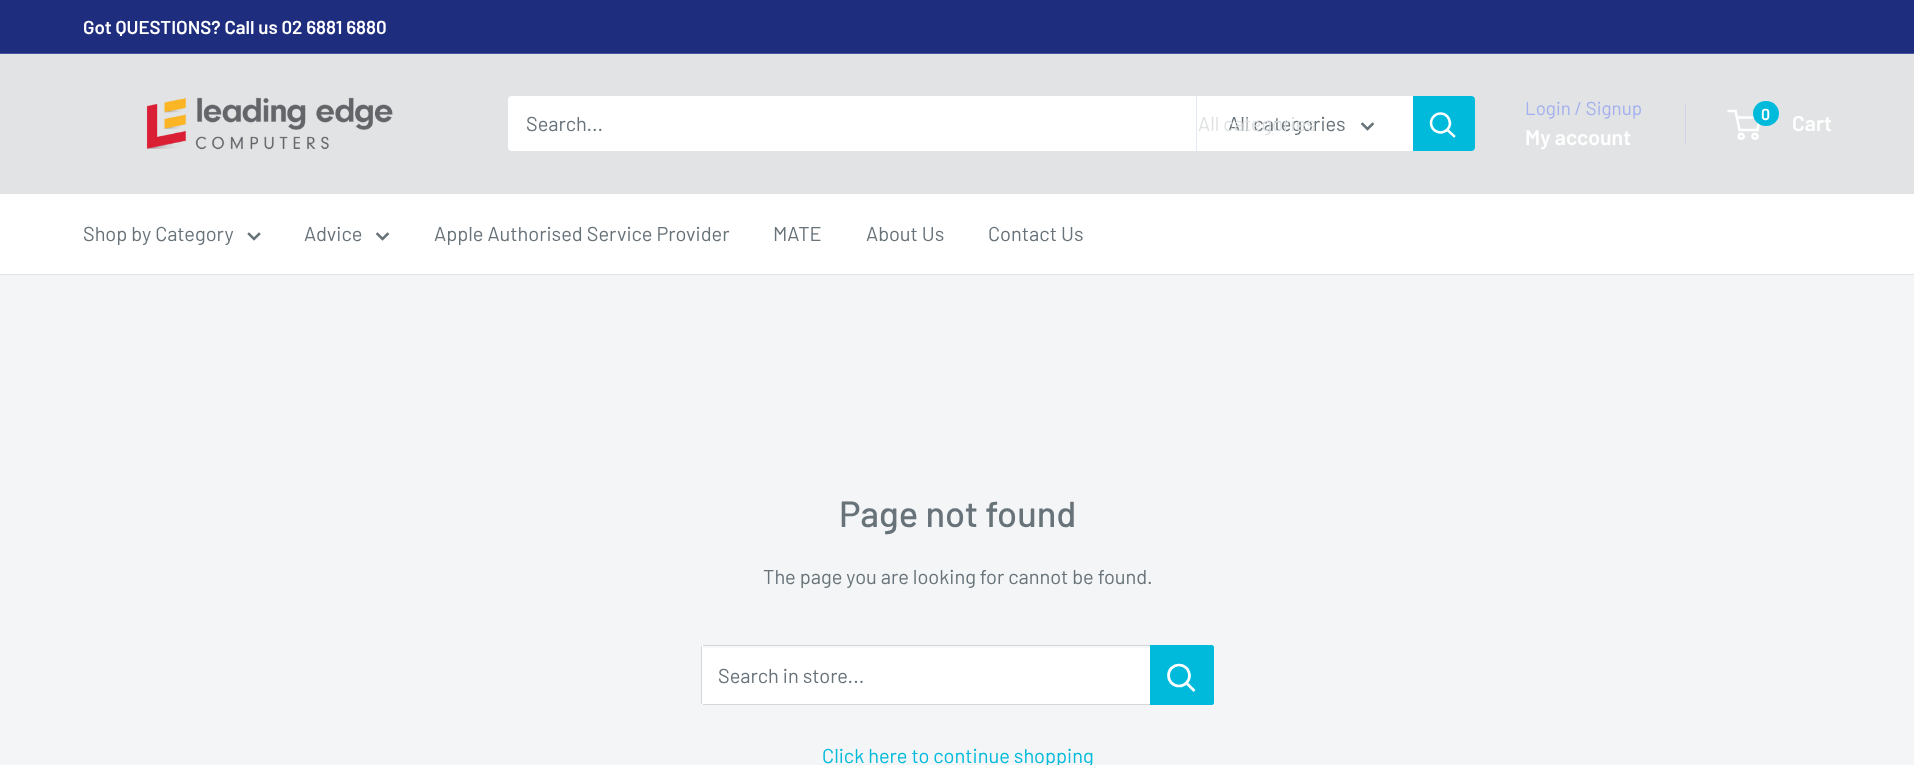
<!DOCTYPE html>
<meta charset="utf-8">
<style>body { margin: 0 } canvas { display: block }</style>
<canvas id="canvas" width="1914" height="765"></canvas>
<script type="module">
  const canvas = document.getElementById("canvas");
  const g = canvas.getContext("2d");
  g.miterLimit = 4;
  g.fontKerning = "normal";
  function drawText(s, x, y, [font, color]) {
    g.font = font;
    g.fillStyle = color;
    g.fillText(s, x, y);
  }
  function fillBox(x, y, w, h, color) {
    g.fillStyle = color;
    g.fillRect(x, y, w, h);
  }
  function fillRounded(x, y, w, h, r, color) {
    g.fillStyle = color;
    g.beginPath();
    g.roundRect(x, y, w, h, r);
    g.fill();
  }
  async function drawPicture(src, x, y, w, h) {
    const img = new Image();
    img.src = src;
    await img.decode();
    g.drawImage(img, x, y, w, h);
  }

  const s1 = ["600 18.75px Barlow", "#FFFFFF"];
  const s2 = ["20px Barlow", "#677279"];
  const s3 = ["20px Barlow", "#DFE1E2"];
  const s4 = ["18.75px Barlow", "#A3AFEF"];
  const s5 = ["600 21.25px Barlow", "#FFFFFF"];
  const s6 = ["600 16px Barlow", "#FFFFFF"];
  const s7 = ["500 36.25px Barlow", "#677279"];
  const s8 = ["20px Barlow", "#00BADB"];

  fillBox(0, 0, 1914, 765, "#F3F5F6");
  fillBox(0, 0, 1914, 53, "#1E2D7D");
  fillBox(0, 53, 1914, 1, "#46549F");
  drawText("Got QUESTIONS? Call us 02 6881 6880", 83, 34, s1);
  fillBox(0, 54, 1914, 140, "#E1E3E4");
  await drawPicture("pic1.png", 146, 97, 247, 53);
  fillRounded(508, 96, 967, 55, 4, "#FFFFFF");
  drawText("Search...", 526, 131, s2);
  fillBox(1196, 96, 1, 55, "#E3E7FA");
  drawText("All categories", 1228, 131, s2);
  drawText("All categories", 1198, 131, s3);
  g.beginPath();
  g.moveTo(1372.5, 124);
  g.lineTo(1367.5, 129);
  g.lineTo(1362.5, 124);
  g.strokeStyle = "#677279";
  g.lineWidth = 2.5;
  g.lineCap = "square";
  g.stroke();
  g.fillStyle = "#00BADB";
  g.beginPath();
  g.roundRect(1413, 96, 62, 55, [0, 4, 4, 0]);
  g.fill();
  g.beginPath();
  g.moveTo(1454, 136);
  g.lineTo(1447.5, 130);
  g.strokeStyle = "#FFFFFF";
  g.stroke();
  g.beginPath();
  g.arc(1440.5, 123, 9.5, 0, Math.PI * 2);
  g.stroke();
  drawText("Login / Signup", 1525, 115, s4);
  fillBox(1685, 103, 1, 42, "#CED3E7");
  drawText("My account", 1525, 145, s5);
  g.beginPath();
  g.arc(1741.2, 136.2, 2.5, 0, Math.PI * 2);
  g.stroke();
  g.beginPath();
  g.arc(1755, 136.2, 2.5, 0, Math.PI * 2);
  g.stroke();
  g.beginPath();
  g.moveTo(1736.5, 117.5);
  g.lineTo(1759.5, 117.5);
  g.lineTo(1757.5, 130);
  g.lineTo(1739.5, 130);
  g.lineTo(1735.5, 111);
  g.lineTo(1727.5, 111);
  g.lineCap = "butt";
  g.stroke();
  fillRounded(1753, 101, 26, 25, 12.5, "#00BADB");
  drawText("0", 1761, 120, s6);
  drawText("Cart", 1792, 131, s5);
  fillBox(0, 194, 1914, 80, "#FFFFFF");
  fillBox(0, 274, 1914, 1, "#E1E3E4");
  drawText("Shop by Category", 83, 241, s2);
  g.beginPath();
  g.moveTo(259, 234);
  g.lineTo(254, 239);
  g.lineTo(249, 234);
  g.strokeStyle = "#677279";
  g.lineCap = "square";
  g.stroke();
  drawText("Advice", 304, 241, s2);
  g.beginPath();
  g.moveTo(387.5, 234);
  g.lineTo(382.5, 239);
  g.lineTo(377.5, 234);
  g.stroke();
  drawText("Apple Authorised Service Provider", 434, 241, s2);
  drawText("MATE", 773, 241, s2);
  drawText("About Us", 866, 241, s2);
  drawText("Contact Us", 988, 241, s2);
  drawText("Page not found", 839, 527, s7);
  drawText("The page you are looking for cannot be found.", 763, 584, s2);
  g.fillStyle = "#FFFFFF";
  g.beginPath();
  g.roundRect(701, 645, 449, 60, [2.5, 0, 0, 2.5]);
  g.fill();
  g.fillStyle = "#F8F8F8";
  g.beginPath();
  g.moveTo(704, 648);
  g.lineTo(1150, 648);
  g.lineTo(1150, 646);
  g.lineTo(704, 646);
  g.lineTo(703, 647);
  g.lineTo(703, 648);
  g.closePath();
  g.fill();
  fillBox(703, 645, 447, 1, "#D4D6D8");
  fillBox(703, 704, 447, 1, "#D4D6D8");
  fillBox(701, 646, 1, 58, "#D4D6D8");
  drawText("Search in store...", 718, 683, s2);
  g.fillStyle = "#00BADB";
  g.beginPath();
  g.roundRect(1150, 645, 64, 60, [0, 2.5, 2.5, 0]);
  g.fill();
  g.beginPath();
  g.moveTo(1193.5, 690);
  g.lineTo(1186.5, 683);
  g.strokeStyle = "#FFFFFF";
  g.lineWidth = 2.7;
  g.stroke();
  g.beginPath();
  g.arc(1179, 675.5, 10.5, 0, Math.PI * 2);
  g.stroke();
  drawText("Click here to continue shopping", 822, 763, s8);
</script>
